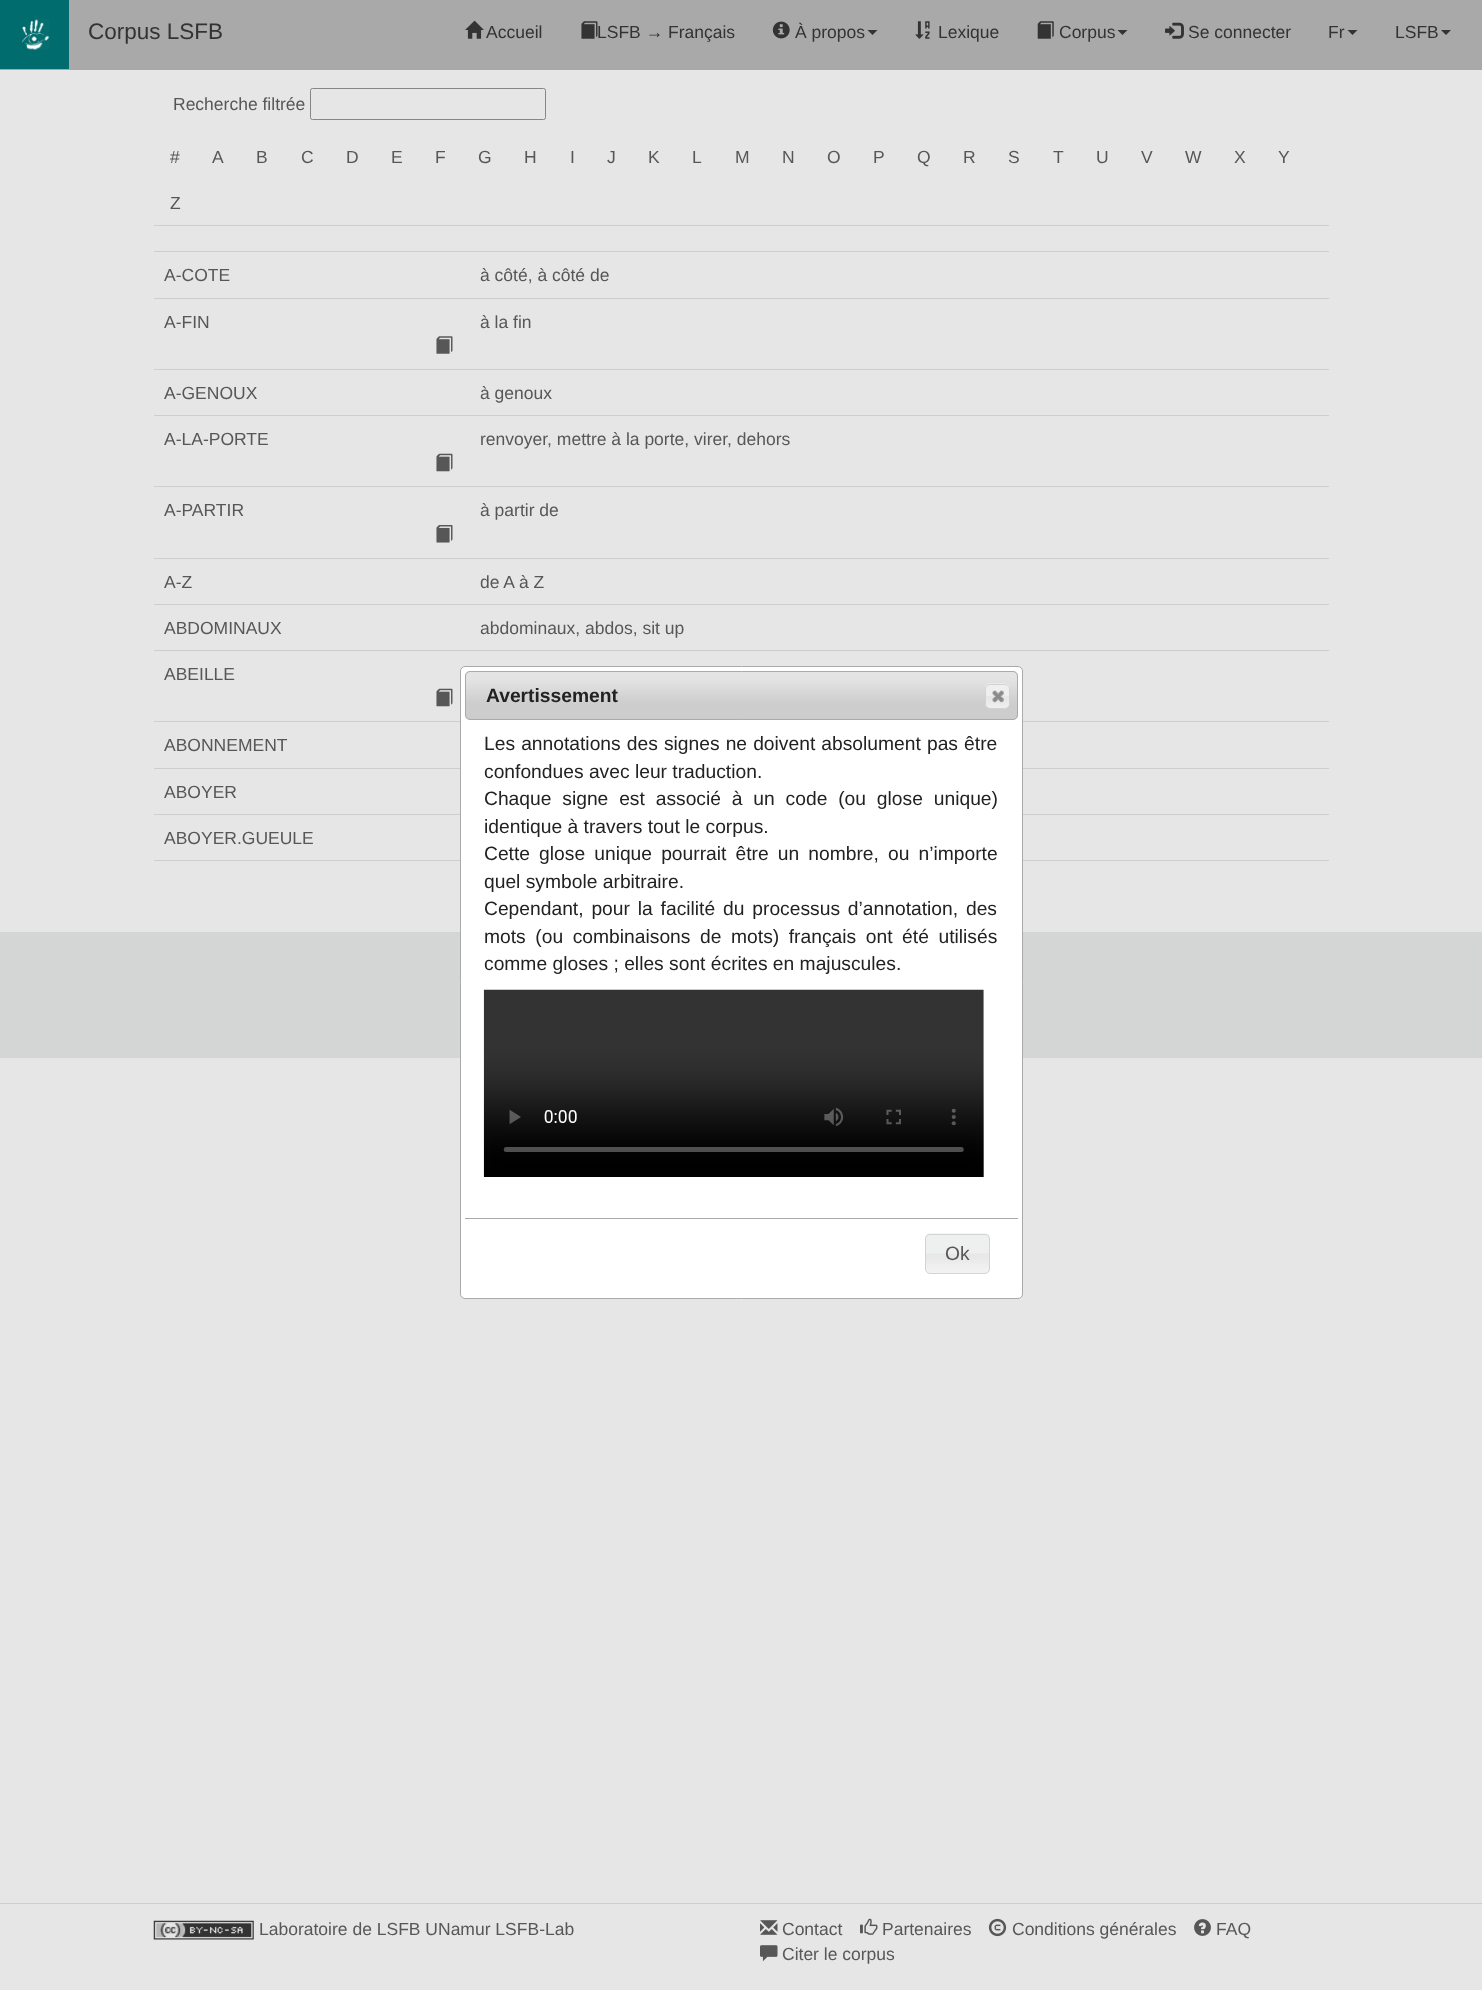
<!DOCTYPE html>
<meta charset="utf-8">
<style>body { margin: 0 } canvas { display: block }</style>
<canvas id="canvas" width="1482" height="1990"></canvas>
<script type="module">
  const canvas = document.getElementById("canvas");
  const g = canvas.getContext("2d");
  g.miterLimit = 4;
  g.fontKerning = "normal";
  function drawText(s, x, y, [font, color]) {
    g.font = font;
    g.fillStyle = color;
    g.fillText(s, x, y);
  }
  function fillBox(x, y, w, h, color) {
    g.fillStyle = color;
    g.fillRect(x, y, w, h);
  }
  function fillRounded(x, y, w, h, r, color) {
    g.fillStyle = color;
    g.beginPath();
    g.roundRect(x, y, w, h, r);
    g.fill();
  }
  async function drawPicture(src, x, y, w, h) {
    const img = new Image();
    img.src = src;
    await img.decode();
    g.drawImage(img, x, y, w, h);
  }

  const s1 = ["22.5px Liberation Sans", "#333333"];
  const s2 = ["17.5px Liberation Sans", "#333333"];
  const s3 = ["17.5px Liberation Sans", "#575757"];
  const s4 = ["bold 19.25px Liberation Sans", "#222222"];
  const s5 = ["19.25px Liberation Sans", "#222222"];
  const s6 = ["19.25px Liberation Sans", "#575757"];

  fillBox(0, 0, 1482, 1990, "#E6E6E6");
  fillBox(0, 0, 1482, 70, "#A9A9A9");
  fillBox(0, 0, 69, 69, "#006C6D");
  await drawPicture("pic1.png", 21, 19, 29, 31);
  drawText("Corpus LSFB", 88, 39, s1);
  await drawPicture("pic2.png", 465, 20, 19, 19);
  drawText("Accueil", 486, 38, s2);
  await drawPicture("pic3.png", 581, 21, 17, 18);
  drawText("LSFB → Français", 597, 38, s2);
  await drawPicture("pic4.png", 772, 21, 18, 18);
  drawText("À propos", 795, 38, s2);
  g.beginPath();
  g.moveTo(867.5, 30);
  g.lineTo(877.5, 30);
  g.lineTo(872.5, 35);
  g.closePath();
  g.fill();
  await drawPicture("pic5.png", 915, 21, 15, 18);
  drawText("Lexique", 938, 38, s2);
  await drawPicture("pic6.png", 1037, 21, 17, 18);
  drawText("Corpus", 1059, 38, s2);
  g.beginPath();
  g.moveTo(1117.5, 30);
  g.lineTo(1127.5, 30);
  g.lineTo(1122.5, 35);
  g.closePath();
  g.fill();
  await drawPicture("pic7.png", 1165, 22, 19, 17);
  drawText("Se connecter", 1188, 38, s2);
  drawText("Fr", 1328, 38, s2);
  g.beginPath();
  g.moveTo(1347.5, 30);
  g.lineTo(1357.5, 30);
  g.lineTo(1352.5, 35);
  g.closePath();
  g.fill();
  drawText("LSFB", 1395, 38, s2);
  g.beginPath();
  g.moveTo(1441, 30);
  g.lineTo(1451, 30);
  g.lineTo(1446, 35);
  g.closePath();
  g.fill();
  drawText("Recherche filtrée", 173, 110, s3);
  g.beginPath();
  g.roundRect(310.5, 88.5, 235, 31, 2);
  g.strokeStyle = "#868686";
  g.stroke();
  fillBox(154, 225, 1175, 1, "#CECECE");
  drawText("#", 170, 163, s3);
  drawText("A", 212, 163, s3);
  drawText("B", 256, 163, s3);
  drawText("C", 301, 163, s3);
  drawText("D", 346, 163, s3);
  drawText("E", 391, 163, s3);
  drawText("F", 435, 163, s3);
  drawText("G", 478, 163, s3);
  drawText("H", 524, 163, s3);
  drawText("I", 570, 163, s3);
  drawText("J", 607, 163, s3);
  drawText("K", 648, 163, s3);
  drawText("L", 692, 163, s3);
  drawText("M", 735, 163, s3);
  drawText("N", 782, 163, s3);
  drawText("O", 827, 163, s3);
  drawText("P", 873, 163, s3);
  drawText("Q", 917, 163, s3);
  drawText("R", 963, 163, s3);
  drawText("S", 1008, 163, s3);
  drawText("T", 1053, 163, s3);
  drawText("U", 1096, 163, s3);
  drawText("V", 1141, 163, s3);
  drawText("W", 1185, 163, s3);
  drawText("X", 1234, 163, s3);
  drawText("Y", 1278, 163, s3);
  drawText("Z", 170, 209, s3);
  fillBox(154, 251, 1175, 1, "#CECECE");
  drawText("A-COTE", 164, 281, s3);
  drawText("à côté, à côté de", 480, 281, s3);
  fillBox(154, 298, 1175, 1, "#CECECE");
  drawText("A-FIN", 164, 328, s3);
  drawText("à la fin", 480, 328, s3);
  await drawPicture("pic8.png", 436, 336, 17, 18);
  fillBox(154, 369, 1175, 1, "#CECECE");
  drawText("A-GENOUX", 164, 399, s3);
  drawText("à genoux", 480, 399, s3);
  fillBox(154, 415, 1175, 1, "#CECECE");
  drawText("A-LA-PORTE", 164, 445, s3);
  drawText("renvoyer, mettre à la porte, virer, dehors", 480, 445, s3);
  await drawPicture("pic9.png", 436, 453, 17, 19);
  fillBox(154, 486, 1175, 1, "#CECECE");
  drawText("A-PARTIR", 164, 516, s3);
  drawText("à partir de", 480, 516, s3);
  await drawPicture("pic10.png", 436, 525, 17, 18);
  fillBox(154, 558, 1175, 1, "#CECECE");
  drawText("A-Z", 164, 588, s3);
  drawText("de A à Z", 480, 588, s3);
  fillBox(154, 604, 1175, 1, "#CECECE");
  drawText("ABDOMINAUX", 164, 634, s3);
  drawText("abdominaux, abdos, sit up", 480, 634, s3);
  fillBox(154, 650, 1175, 1, "#CECECE");
  drawText("ABEILLE", 164, 680, s3);
  await drawPicture("pic9.png", 436, 688, 17, 19);
  fillBox(154, 721, 306, 1, "#CECECE");
  fillBox(1023, 721, 306, 1, "#CECECE");
  drawText("ABONNEMENT", 164, 751, s3);
  fillBox(154, 768, 306, 1, "#CECECE");
  fillBox(1023, 768, 306, 1, "#CECECE");
  drawText("ABOYER", 164, 798, s3);
  fillBox(154, 814, 306, 1, "#CECECE");
  fillBox(1023, 814, 306, 1, "#CECECE");
  drawText("ABOYER.GUEULE", 164, 844, s3);
  fillBox(154, 860, 306, 1, "#CECECE");
  fillBox(1023, 860, 306, 1, "#CECECE");
  fillBox(0, 932, 1482, 126, "#D4D5D5");
  g.fillStyle = "#FFFFFF";
  g.beginPath();
  g.roundRect(460.5, 666.5, 562, 632, 4.5);
  g.fill();
  g.strokeStyle = "#AAAAAA";
  g.stroke();
  fillRounded(465, 671, 553, 49, 5, "#CCCCCC");
  await drawPicture("pic11.png", 465, 671, 553, 46);
  g.beginPath();
  g.roundRect(465.5, 671.5, 552, 48, 4.5);
  g.stroke();
  drawText("Avertissement", 486, 702, s4);
  await drawPicture("pic12.png", 985, 683, 25, 25);
  g.beginPath();
  g.roundRect(985.5, 684.5, 24, 24, 4.5);
  g.strokeStyle = "#D3D3D3";
  g.stroke();
  await drawPicture("pic13.png", 992, 690, 12, 13);
  g.wordSpacing = "0.75px";
  drawText("Les annotations des signes ne doivent absolument pas être", 484, 750, s5);
  g.wordSpacing = "0px";
  drawText("confondues avec leur traduction.", 484, 778, s5);
  g.wordSpacing = "5.5px";
  drawText("Chaque signe est associé à un code (ou glose unique)", 484, 805, s5);
  g.wordSpacing = "0px";
  drawText("identique à travers tout le corpus.", 484, 833, s5);
  g.wordSpacing = "3.75px";
  drawText("Cette glose unique pourrait être un nombre, ou n’importe", 484, 860, s5);
  g.wordSpacing = "0px";
  drawText("quel symbole arbitraire.", 484, 888, s5);
  g.wordSpacing = "2.5px";
  drawText("Cependant, pour la facilité du processus d’annotation, des", 484, 915, s5);
  g.wordSpacing = "4.25px";
  drawText("mots (ou combinaisons de mots) français ont été utilisés", 484, 943, s5);
  g.wordSpacing = "0px";
  drawText("comme gloses ; elles sont écrites en majuscules.", 484, 970, s5);
  await drawPicture("pic14.png", 483, 989, 501, 188);
  fillBox(465, 1218, 553, 1, "#AAAAAA");
  await drawPicture("pic15.png", 925, 1233, 65, 40);
  g.beginPath();
  g.roundRect(925.5, 1234.5, 64, 39, 4.5);
  g.stroke();
  drawText("Ok", 945, 1260, s6);
  fillBox(0, 1903, 1482, 1, "#CECECE");
  await drawPicture("pic16.png", 153, 1920, 101, 20);
  drawText("Laboratoire de LSFB UNamur LSFB-Lab", 259, 1935, s3);
  await drawPicture("pic17.png", 760, 1920, 18, 15);
  drawText("Contact", 782, 1935, s3);
  await drawPicture("pic18.png", 860, 1918, 18, 17);
  drawText("Partenaires", 882, 1935, s3);
  await drawPicture("pic19.png", 988, 1918, 19, 19);
  drawText("Conditions générales", 1012, 1935, s3);
  await drawPicture("pic20.png", 1194, 1919, 17, 17);
  drawText("FAQ", 1216, 1935, s3);
  await drawPicture("pic21.png", 760, 1945, 18, 16);
  drawText("Citer le corpus", 782, 1960, s3);
</script>
